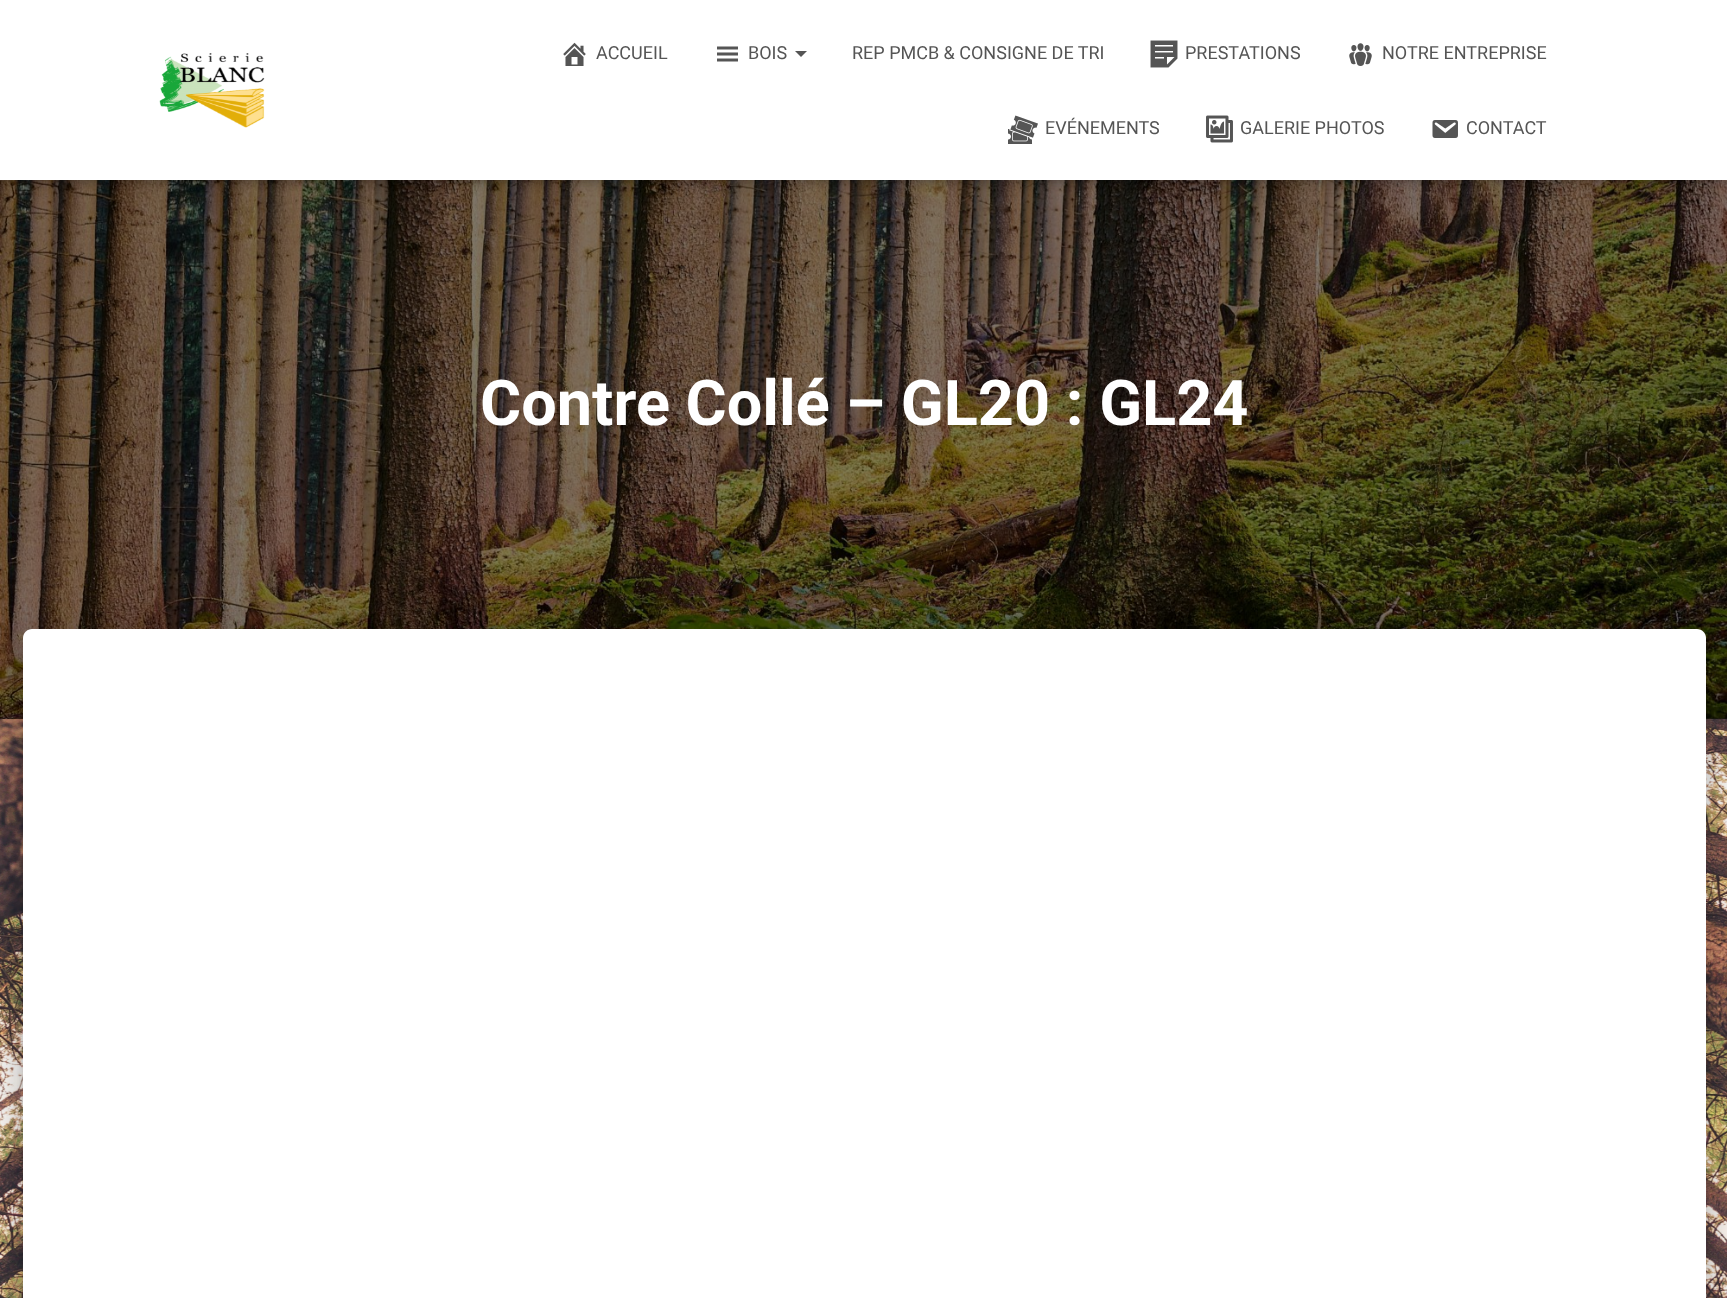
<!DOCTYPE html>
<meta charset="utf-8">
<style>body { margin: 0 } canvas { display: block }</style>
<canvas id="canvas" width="1727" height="1298"></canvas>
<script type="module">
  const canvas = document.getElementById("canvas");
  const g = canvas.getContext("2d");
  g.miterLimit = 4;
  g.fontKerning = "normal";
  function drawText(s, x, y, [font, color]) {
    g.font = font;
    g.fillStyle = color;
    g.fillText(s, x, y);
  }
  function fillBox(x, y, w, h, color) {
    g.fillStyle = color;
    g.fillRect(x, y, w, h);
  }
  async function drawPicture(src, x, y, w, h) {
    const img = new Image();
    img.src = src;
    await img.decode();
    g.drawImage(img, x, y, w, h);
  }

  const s1 = ["18px Roboto", "#555555"];
  const s2 = ["bold 63px Roboto", "#FFFFFF"];

  fillBox(0, 0, 1727, 1298, "#FFFFFF");
  await drawPicture("pic1.png", 0, 718, 1727, 580);
  await drawPicture("pic10.png", 0, 180, 1727, 539);
  fillBox(0, 180, 1727, 539, "rgba(0, 0, 0, 0.5)");
  g.fillStyle = "rgba(0, 0, 0, 0.1)";
  g.filter = "blur(4px)";
  g.beginPath();
  g.rect(3, 9, 1722, 174);
  g.fill();
  g.filter = "none";
  g.fillStyle = "rgba(0, 0, 0, 0.12)";
  g.filter = "blur(7.5px)";
  g.beginPath();
  g.rect(0, 2, 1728, 180);
  g.fill();
  g.filter = "none";
  g.fillStyle = "rgba(0, 0, 0, 0.42)";
  g.filter = "blur(7.5px)";
  g.beginPath();
  g.rect(9, 11, 1710, 162);
  g.fill();
  g.filter = "none";
  fillBox(0, 0, 1727, 180, "#FFFFFF");
  await drawPicture("pic2.png", 159, 53, 106, 75);
  await drawPicture("pic3.png", 563, 42, 23, 24);
  drawText("ACCUEIL", 596, 59, s1);
  await drawPicture("pic4.png", 717, 46, 21, 16);
  drawText("BOIS", 748, 59, s1);
  g.beginPath();
  g.moveTo(795, 51);
  g.lineTo(807, 51);
  g.lineTo(801, 57);
  g.closePath();
  g.fill();
  drawText("REP PMCB & CONSIGNE DE TRI", 852, 59, s1);
  await drawPicture("pic5.png", 1150, 40, 28, 28);
  drawText("PRESTATIONS", 1185, 59, s1);
  await drawPicture("pic6.png", 1349, 43, 23, 23);
  drawText("NOTRE ENTREPRISE", 1382, 59, s1);
  await drawPicture("pic7.png", 1008, 115, 30, 29);
  drawText("EVÉNEMENTS", 1045, 134, s1);
  await drawPicture("pic8.png", 1206, 115, 27, 28);
  drawText("GALERIE PHOTOS", 1240, 134, s1);
  await drawPicture("pic9.png", 1432, 120, 26, 18);
  drawText("CONTACT", 1466, 134, s1);
  drawText("Contre Collé – GL20 : GL24", 480, 425, s2);
  g.fillStyle = "rgba(0, 0, 0, 0.2)";
  g.filter = "blur(7.5px)";
  g.beginPath();
  g.roundRect(30, 648, 1668, 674, 1.5);
  g.fill();
  g.filter = "none";
  g.fillStyle = "rgba(0, 0, 0, 0.12)";
  g.filter = "blur(22.5px)";
  g.beginPath();
  g.roundRect(15, 630, 1698, 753, 17);
  g.fill();
  g.filter = "none";
  g.fillStyle = "rgba(0, 0, 0, 0.14)";
  g.filter = "blur(18px)";
  g.beginPath();
  g.roundRect(20, 650, 1689, 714, 12);
  g.fill();
  g.filter = "none";
  g.fillStyle = "#FFFFFF";
  g.beginPath();
  g.moveTo(32, 629);
  g.lineTo(1697, 629);
  g.bezierCurveTo(1702, 629, 1706, 633, 1706, 638);
  g.lineTo(1706, 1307);
  g.lineTo(23, 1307);
  g.lineTo(23, 638);
  g.bezierCurveTo(23, 633, 27, 629, 32, 629);
  g.closePath();
  g.fill();
</script>
